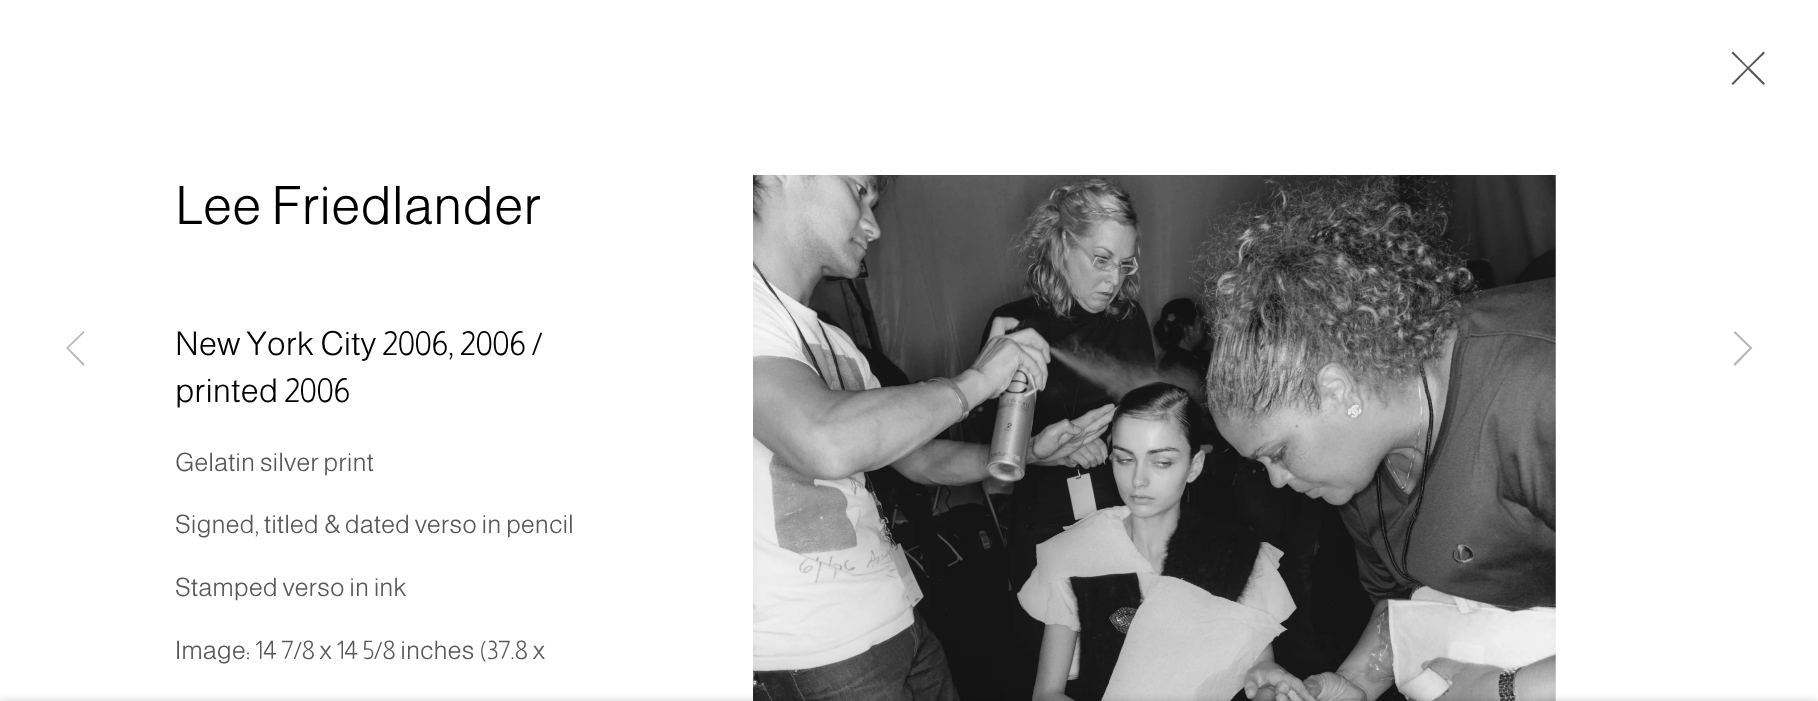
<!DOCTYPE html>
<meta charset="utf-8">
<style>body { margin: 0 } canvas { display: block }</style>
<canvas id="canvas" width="1818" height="701"></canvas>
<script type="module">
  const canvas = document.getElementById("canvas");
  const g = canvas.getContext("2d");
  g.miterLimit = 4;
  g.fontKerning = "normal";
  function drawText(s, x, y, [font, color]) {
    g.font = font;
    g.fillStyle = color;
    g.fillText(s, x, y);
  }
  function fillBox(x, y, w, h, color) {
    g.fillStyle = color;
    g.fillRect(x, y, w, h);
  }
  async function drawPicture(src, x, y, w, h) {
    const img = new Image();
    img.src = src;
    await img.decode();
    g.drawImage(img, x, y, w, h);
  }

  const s1 = ["300 53.25px Almarai", "#000000"];
  const s2 = ["300 33px Almarai", "#000000"];
  const s3 = ["300 25.4px Almarai", "#585858"];

  fillBox(0, 0, 1818, 701, "#FFFFFF");
  g.fillStyle = "#555555";
  g.beginPath();
  g.moveTo(1765, 53);
  g.lineTo(1763.5, 51.5);
  g.lineTo(1748, 67);
  g.lineTo(1733, 51.5);
  g.lineTo(1731.5, 53);
  g.lineTo(1747, 68);
  g.lineTo(1731.5, 83.5);
  g.lineTo(1733, 85);
  g.lineTo(1748, 69.5);
  g.lineTo(1763.5, 85);
  g.lineTo(1765, 83.5);
  g.lineTo(1749.5, 68);
  g.closePath();
  g.fill();
  drawText("Lee Friedlander", 175, 224, s1);
  drawText("New York City 2006, 2006 /", 175, 355, s2);
  drawText("printed 2006", 175, 402, s2);
  drawText("Gelatin silver print", 175, 471, s3);
  drawText("Signed, titled & dated verso in pencil", 175, 533, s3);
  drawText("Stamped verso in ink", 175, 596, s3);
  drawText("Image: 14 7/8 x 14 5/8 inches (37.8 x", 175, 659, s3);
  await drawPicture("pic1.png", 753, 175, 803, 526);
  g.fillStyle = "#B9B9B9";
  g.beginPath();
  g.moveTo(67.5, 349.5);
  g.lineTo(83.5, 366);
  g.lineTo(84.5, 364);
  g.lineTo(68.5, 348);
  g.lineTo(84.5, 332.5);
  g.lineTo(83.5, 331);
  g.lineTo(66, 348);
  g.closePath();
  g.fill();
  g.beginPath();
  g.moveTo(1752.5, 348);
  g.lineTo(1735, 331);
  g.lineTo(1733.5, 332.5);
  g.lineTo(1749.5, 348);
  g.lineTo(1733.5, 364);
  g.lineTo(1735, 366);
  g.closePath();
  g.fill();
  g.fillStyle = "rgba(0, 0, 0, 0.23)";
  g.filter = "blur(4.5px)";
  g.beginPath();
  g.rect(0, 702, 1818, 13);
  g.fill();
  g.filter = "none";
</script>
